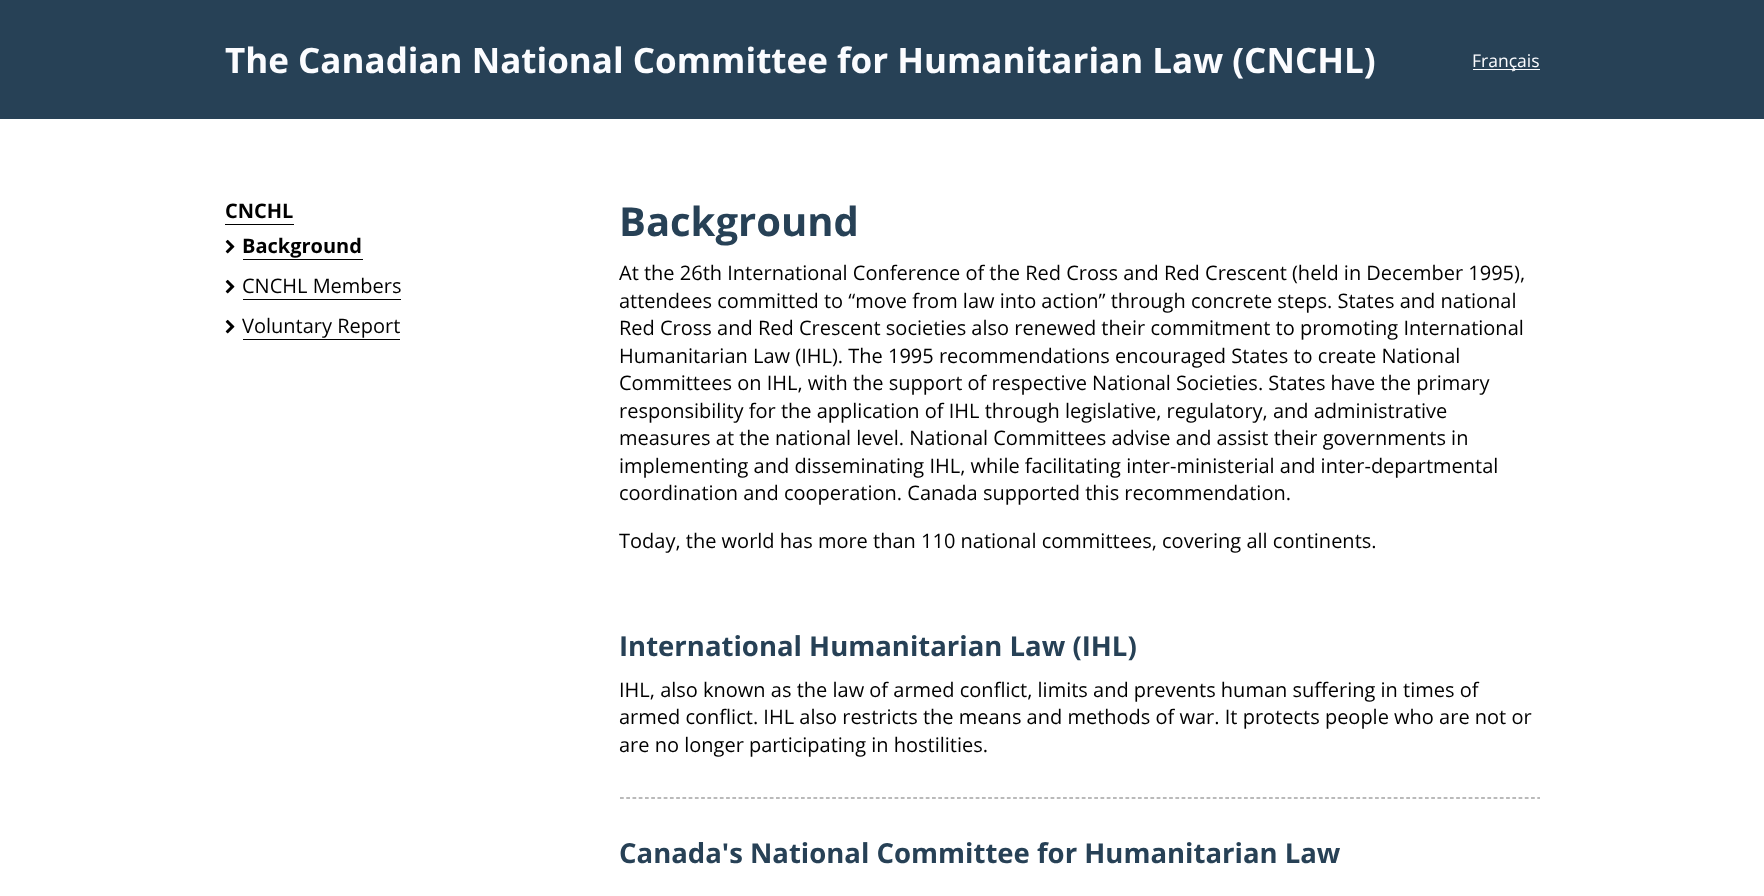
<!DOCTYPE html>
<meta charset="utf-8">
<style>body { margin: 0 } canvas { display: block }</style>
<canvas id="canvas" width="1764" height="896"></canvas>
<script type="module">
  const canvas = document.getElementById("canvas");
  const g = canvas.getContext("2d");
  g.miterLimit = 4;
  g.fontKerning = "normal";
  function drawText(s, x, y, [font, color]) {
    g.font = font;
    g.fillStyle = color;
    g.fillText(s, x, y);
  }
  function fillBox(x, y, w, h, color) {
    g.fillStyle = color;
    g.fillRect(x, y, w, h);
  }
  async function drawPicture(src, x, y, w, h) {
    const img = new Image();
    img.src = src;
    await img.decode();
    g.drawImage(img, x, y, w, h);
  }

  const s1 = ["bold 35px Open Sans", "#FBFCFF"];
  const s2 = ["17.5px Open Sans", "#FBFCFF"];
  const s3 = ["bold 20px Open Sans", "#000000"];
  const s4 = ["20px Open Sans", "#000000"];
  const s5 = ["bold 40px Open Sans", "#274156"];
  const s6 = ["bold 27.5px Open Sans", "#274156"];

  fillBox(0, 0, 1764, 896, "#FFFFFF");
  fillBox(0, 0, 1764, 119, "#274156");
  drawText("The Canadian National Committee for Humanitarian Law (CNCHL)", 225, 73, s1);
  fillBox(1473, 69, 67, 1, "#FBFCFF");
  drawText("Français", 1472, 67, s2);
  fillBox(225, 224, 69, 1, "#000000");
  drawText("CNCHL", 225, 218, s3);
  await drawPicture("pic1.png", 225, 239, 10, 15);
  drawText("Background", 242, 253, s3);
  fillBox(243, 259, 120, 1, "#000000");
  await drawPicture("pic1.png", 225, 279, 10, 15);
  drawText("CNCHL Members", 242, 293, s4);
  fillBox(243, 299, 158, 1, "#000000");
  await drawPicture("pic1.png", 225, 319, 10, 15);
  drawText("Voluntary Report", 242, 333, s4);
  fillBox(243, 339, 157, 1, "#000000");
  drawText("Background", 619, 236, s5);
  drawText("At the 26th International Conference of the Red Cross and Red Crescent (held in December 1995),", 619, 280, s4);
  drawText("attendees committed to “move from law into action” through concrete steps. States and national", 619, 308, s4);
  drawText("Red Cross and Red Crescent societies also renewed their commitment to promoting International", 619, 335, s4);
  drawText("Humanitarian Law (IHL). The 1995 recommendations encouraged States to create National", 619, 363, s4);
  drawText("Committees on IHL, with the support of respective National Societies. States have the primary", 619, 390, s4);
  drawText("responsibility for the application of IHL through legislative, regulatory, and administrative", 619, 418, s4);
  drawText("measures at the national level. National Committees advise and assist their governments in", 619, 445, s4);
  drawText("implementing and disseminating IHL, while facilitating inter-ministerial and inter-departmental", 619, 473, s4);
  drawText("coordination and cooperation. Canada supported this recommendation.", 619, 500, s4);
  drawText("Today, the world has more than 110 national committees, covering all continents.", 619, 548, s4);
  g.beginPath();
  g.moveTo(620, 798);
  g.lineTo(1540, 798);
  g.strokeStyle = "#767676";
  g.lineWidth = 1.2;
  g.setLineDash([3.75, 2.49]);
  g.stroke();
  drawText("International Humanitarian Law (IHL)", 619, 656, s6);
  drawText("IHL, also known as the law of armed conflict, limits and prevents human suffering in times of", 619, 697, s4);
  drawText("armed conflict. IHL also restricts the means and methods of war. It protects people who are not or", 619, 724, s4);
  drawText("are no longer participating in hostilities.", 619, 752, s4);
  drawText("Canada's National Committee for Humanitarian Law", 619, 863, s6);
</script>
